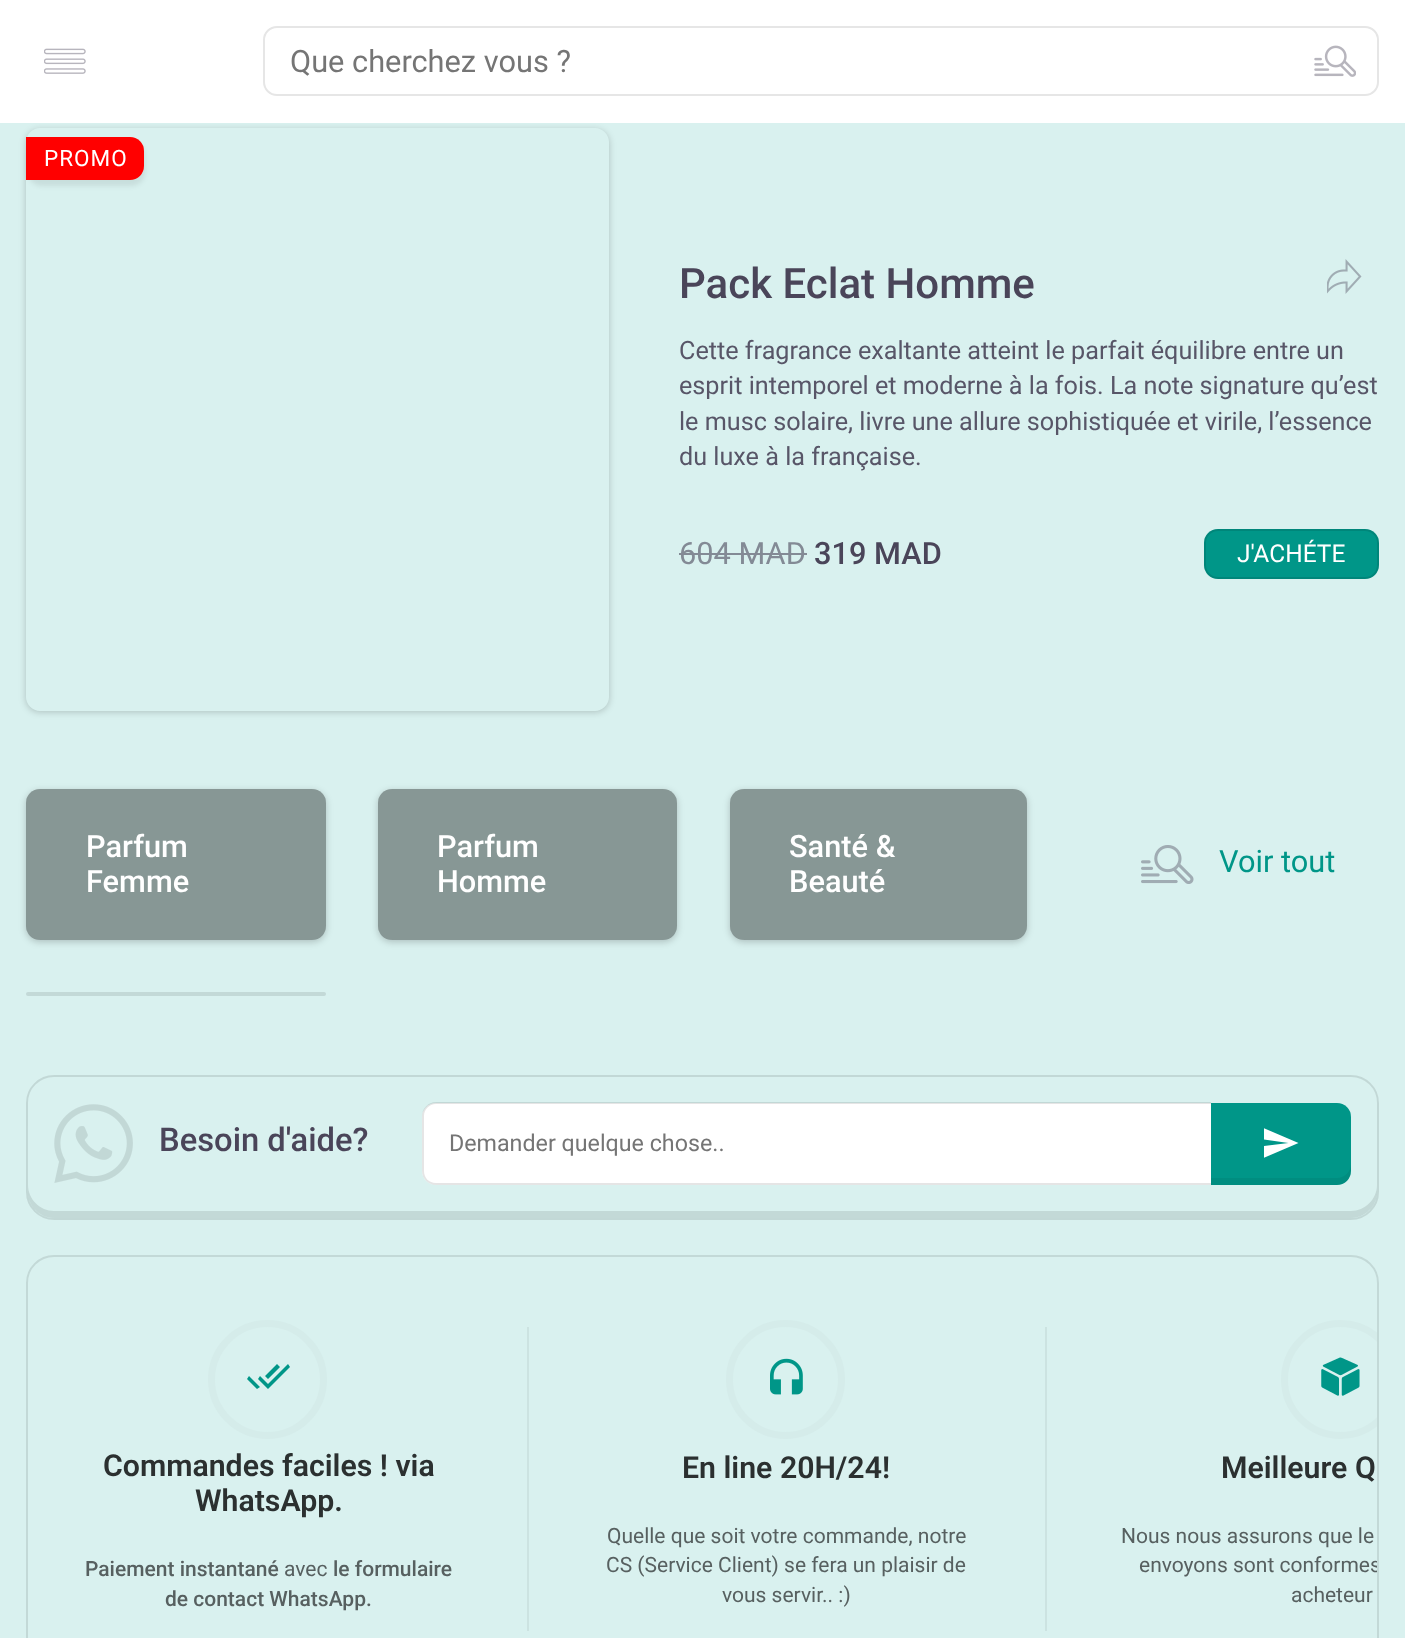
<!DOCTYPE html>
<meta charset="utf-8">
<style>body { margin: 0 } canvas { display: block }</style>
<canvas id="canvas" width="1405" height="1638"></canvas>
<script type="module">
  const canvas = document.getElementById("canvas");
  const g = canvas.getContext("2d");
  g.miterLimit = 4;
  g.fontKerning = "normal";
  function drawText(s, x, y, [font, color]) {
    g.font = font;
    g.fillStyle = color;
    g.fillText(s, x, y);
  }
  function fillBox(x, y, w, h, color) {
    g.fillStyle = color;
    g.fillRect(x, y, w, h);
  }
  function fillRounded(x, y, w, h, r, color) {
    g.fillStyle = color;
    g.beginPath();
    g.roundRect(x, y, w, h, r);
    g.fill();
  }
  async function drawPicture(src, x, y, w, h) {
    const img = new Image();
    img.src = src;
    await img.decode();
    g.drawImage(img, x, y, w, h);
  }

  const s1 = ["30.75px Roboto", "#757575"];
  const s2 = ["22.5px Roboto", "#FFFFFF"];
  const s3 = ["500 42px Roboto", "#4A4559"];
  const s4 = ["25.2px Roboto", "#585668"];
  const s5 = ["30.75px Roboto", "#838A95"];
  const s6 = ["500 30.75px Roboto", "#4A4559"];
  const s7 = ["24.5px Roboto", "#FFFFFF"];
  const s8 = ["500 30.75px Roboto", "#FFFFFF"];
  const s9 = ["30.75px Roboto", "#009688"];
  const s10 = ["500 32.75px Roboto", "#4A4559"];
  const s11 = ["23.25px Roboto", "#757575"];
  const s12 = ["600 30.25px Roboto", "#2B3030"];
  const s13 = ["500 21px Roboto", "#576060"];
  const s14 = ["21px Roboto", "#576060"];

  fillBox(0, 0, 1405, 1638, "#D9F1EF");
  g.save();
  g.beginPath();
  g.moveTo(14, 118);
  g.lineTo(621, 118);
  g.lineTo(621, 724);
  g.lineTo(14, 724);
  g.closePath();
  g.moveTo(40, 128);
  g.lineTo(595, 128);
  g.bezierCurveTo(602.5, 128, 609, 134.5, 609, 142);
  g.lineTo(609, 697);
  g.bezierCurveTo(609, 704.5, 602.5, 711, 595, 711);
  g.lineTo(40, 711);
  g.bezierCurveTo(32.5, 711, 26, 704.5, 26, 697);
  g.lineTo(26, 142);
  g.bezierCurveTo(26, 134.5, 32.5, 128, 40, 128);
  g.closePath();
  g.clip("evenodd");
  g.fillStyle = "rgba(0, 0, 0, 0.2)";
  g.filter = "blur(3.5px)";
  g.beginPath();
  g.roundRect(26, 130, 583, 582, 14);
  g.fill();
  g.filter = "none";
  g.restore();
  fillBox(0, 0, 1405, 123, "#FFFFFF");
  await drawPicture("pic1.png", 44, 48, 42, 26);
  g.beginPath();
  g.roundRect(264, 27, 1114, 68, 13);
  g.strokeStyle = "#E6E6E6";
  g.lineWidth = 2;
  g.stroke();
  drawText("Que cherchez vous ?", 290, 72, s1);
  await drawPicture("pic2.png", 1314, 45, 42, 32);
  g.fillStyle = "rgba(0, 0, 0, 0.08)";
  g.filter = "blur(2.5px)";
  g.beginPath();
  g.roundRect(28, 142, 117, 44, 14);
  g.fill();
  g.filter = "none";
  g.fillStyle = "#FF0000";
  g.beginPath();
  g.roundRect(26, 137, 118, 43, [0, 14, 14, 0]);
  g.fill();
  g.letterSpacing = "1px";
  drawText("PROMO", 44, 166, s2);
  g.letterSpacing = "0px";
  drawText("Pack Eclat Homme", 679, 298, s3);
  await drawPicture("pic3.png", 1327, 259, 35, 35);
  drawText("Cette fragrance exaltante atteint le parfait équilibre entre un", 679, 359, s4);
  drawText("esprit intemporel et moderne à la fois. La note signature qu’est", 679, 394, s4);
  drawText("le musc solaire, livre une allure sophistiquée et virile, l’essence", 679, 430, s4);
  drawText("du luxe à la française.", 679, 465, s4);
  drawText("604 MAD", 679, 564, s5);
  fillBox(679, 553, 128, 2, "#838A95");
  drawText("319 MAD", 814, 564, s6);
  fillRounded(1204, 529, 175, 50, 14, "#009688");
  g.beginPath();
  g.roundRect(1205, 530, 173, 48, 13);
  g.strokeStyle = "rgba(0, 0, 0, 0.1)";
  g.stroke();
  drawText("J'ACHÉTE", 1237, 562, s7);
  g.save();
  g.beginPath();
  g.moveTo(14, 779);
  g.lineTo(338, 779);
  g.lineTo(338, 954);
  g.lineTo(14, 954);
  g.closePath();
  g.moveTo(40, 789);
  g.lineTo(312, 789);
  g.bezierCurveTo(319.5, 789, 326, 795.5, 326, 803);
  g.lineTo(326, 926);
  g.bezierCurveTo(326, 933.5, 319.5, 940, 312, 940);
  g.lineTo(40, 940);
  g.bezierCurveTo(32.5, 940, 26, 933.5, 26, 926);
  g.lineTo(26, 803);
  g.bezierCurveTo(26, 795.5, 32.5, 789, 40, 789);
  g.closePath();
  g.clip("evenodd");
  g.fillStyle = "rgba(0, 0, 0, 0.2)";
  g.filter = "blur(3.5px)";
  g.beginPath();
  g.roundRect(26, 791, 300, 151, 14);
  g.fill();
  g.filter = "none";
  g.restore();
  fillRounded(26, 789, 300, 151, 14, "rgba(0, 0, 0, 0.1)");
  fillRounded(26, 789, 300, 151, 14, "rgba(0, 0, 0, 0.3)");
  drawText("Parfum", 86, 857, s8);
  drawText("Femme", 86, 892, s8);
  g.save();
  g.beginPath();
  g.moveTo(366, 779);
  g.lineTo(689, 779);
  g.lineTo(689, 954);
  g.lineTo(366, 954);
  g.closePath();
  g.moveTo(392, 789);
  g.lineTo(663, 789);
  g.bezierCurveTo(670.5, 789, 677, 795.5, 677, 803);
  g.lineTo(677, 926);
  g.bezierCurveTo(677, 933.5, 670.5, 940, 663, 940);
  g.lineTo(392, 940);
  g.bezierCurveTo(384.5, 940, 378, 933.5, 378, 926);
  g.lineTo(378, 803);
  g.bezierCurveTo(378, 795.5, 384.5, 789, 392, 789);
  g.closePath();
  g.clip("evenodd");
  g.fillStyle = "rgba(0, 0, 0, 0.2)";
  g.filter = "blur(3.5px)";
  g.beginPath();
  g.roundRect(378, 791, 299, 151, 14);
  g.fill();
  g.filter = "none";
  g.restore();
  fillRounded(378, 789, 299, 151, 14, "rgba(0, 0, 0, 0.1)");
  fillRounded(378, 789, 299, 151, 14, "rgba(0, 0, 0, 0.3)");
  drawText("Parfum", 437, 857, s8);
  drawText("Homme", 437, 892, s8);
  g.save();
  g.beginPath();
  g.moveTo(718, 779);
  g.lineTo(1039, 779);
  g.lineTo(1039, 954);
  g.lineTo(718, 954);
  g.closePath();
  g.moveTo(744, 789);
  g.lineTo(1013, 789);
  g.bezierCurveTo(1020.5, 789, 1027, 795.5, 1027, 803);
  g.lineTo(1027, 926);
  g.bezierCurveTo(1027, 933.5, 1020.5, 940, 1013, 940);
  g.lineTo(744, 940);
  g.bezierCurveTo(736.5, 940, 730, 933.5, 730, 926);
  g.lineTo(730, 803);
  g.bezierCurveTo(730, 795.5, 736.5, 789, 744, 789);
  g.closePath();
  g.clip("evenodd");
  g.fillStyle = "rgba(0, 0, 0, 0.2)";
  g.filter = "blur(3.5px)";
  g.beginPath();
  g.roundRect(730, 791, 297, 151, 14);
  g.fill();
  g.filter = "none";
  g.restore();
  fillRounded(730, 789, 297, 151, 14, "rgba(0, 0, 0, 0.1)");
  fillRounded(730, 789, 297, 151, 14, "rgba(0, 0, 0, 0.3)");
  drawText("Santé &", 789, 857, s8);
  drawText("Beauté", 789, 892, s8);
  await drawPicture("pic4.png", 1141, 845, 53, 39);
  drawText("Voir tout", 1219, 872, s9);
  fillRounded(26, 992, 300, 4, 2, "#C3D9D7");
  g.beginPath();
  g.moveTo(28, 1185);
  g.lineTo(28, 1192);
  g.bezierCurveTo(28, 1206, 40, 1218, 54, 1218);
  g.lineTo(1351, 1218);
  g.bezierCurveTo(1365, 1218, 1377, 1206, 1377, 1192);
  g.lineTo(1377, 1185);
  g.bezierCurveTo(1377, 1199, 1365, 1211, 1351, 1211);
  g.lineTo(54, 1211);
  g.bezierCurveTo(40, 1211, 28, 1199, 28, 1185);
  g.closePath();
  g.fill();
  g.beginPath();
  g.roundRect(27, 1076, 1351, 143, 27);
  g.stroke();
  await drawPicture("pic5.png", 54, 1104, 79, 79);
  drawText("Besoin d'aide?", 159, 1151, s10);
  g.fillStyle = "#FFFFFF";
  g.beginPath();
  g.roundRect(422, 1103, 789, 82, [14, 0, 0, 14]);
  g.fill();
  g.fillStyle = "rgba(0, 0, 0, 0.1)";
  g.beginPath();
  g.moveTo(436, 1102);
  g.lineTo(1211, 1102);
  g.lineTo(1211, 1185);
  g.lineTo(436, 1185);
  g.bezierCurveTo(428, 1185, 422, 1178, 422, 1171);
  g.lineTo(422, 1116);
  g.bezierCurveTo(422, 1109, 428, 1102, 436, 1102);
  g.closePath();
  g.moveTo(436, 1104);
  g.lineTo(1211, 1104);
  g.lineTo(1211, 1183);
  g.lineTo(436, 1183);
  g.bezierCurveTo(429, 1183, 424, 1178, 424, 1171);
  g.lineTo(424, 1116);
  g.bezierCurveTo(424, 1110, 429, 1104, 436, 1104);
  g.closePath();
  g.fill("evenodd");
  drawText("Demander quelque chose..", 449, 1151, s11);
  g.fillStyle = "#009688";
  g.beginPath();
  g.roundRect(1211, 1103, 140, 82, [0, 14, 14, 0]);
  g.fill();
  g.fillStyle = "rgba(0, 0, 0, 0.06)";
  g.beginPath();
  g.moveTo(1337, 1178);
  g.lineTo(1211, 1178);
  g.lineTo(1211, 1185);
  g.lineTo(1337, 1185);
  g.bezierCurveTo(1345, 1185, 1351, 1179, 1351, 1171);
  g.lineTo(1351, 1164);
  g.bezierCurveTo(1351, 1171, 1345, 1178, 1337, 1178);
  g.closePath();
  g.fill();
  g.save();
  g.beginPath();
  g.rect(1264, 1125, 35, 35);
  g.clip();
  g.fillStyle = "#FFFFFF";
  g.beginPath();
  g.moveTo(1263.5, 1128);
  g.lineTo(1263.5, 1139.5);
  g.lineTo(1288.5, 1143);
  g.lineTo(1263.5, 1146);
  g.lineTo(1263.5, 1158);
  g.lineTo(1298.5, 1143);
  g.closePath();
  g.fill();
  g.restore();
  g.beginPath();
  g.roundRect(27, 1256, 1351, 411, 27);
  g.strokeStyle = "#C3D9D7";
  g.stroke();
  fillBox(527, 1327, 2, 304, "#CCE3E1");
  g.beginPath();
  g.arc(267.5, 1379.5, 56, 0, Math.PI * 2);
  g.strokeStyle = "#D5ECEA";
  g.lineWidth = 7;
  g.stroke();
  g.fillStyle = "#009688";
  g.beginPath();
  g.moveTo(280, 1367);
  g.lineTo(268, 1379);
  g.lineTo(265, 1376);
  g.lineTo(277, 1364);
  g.closePath();
  g.moveTo(288, 1364);
  g.lineTo(290, 1367);
  g.lineTo(268, 1389);
  g.lineTo(258, 1379);
  g.lineTo(260, 1376);
  g.lineTo(268, 1384);
  g.closePath();
  g.moveTo(247, 1379);
  g.lineTo(249, 1376);
  g.lineTo(260, 1387);
  g.lineTo(257, 1389);
  g.closePath();
  g.fill();
  drawText("Commandes faciles ! via", 103, 1476, s12);
  drawText("WhatsApp.", 195, 1511, s12);
  drawText("Paiement instantané", 85, 1576, s13);
  drawText("avec", 284, 1576, s14);
  drawText("le formulaire", 333, 1576, s13);
  drawText("de contact WhatsApp.", 165, 1606, s13);
  fillBox(1045, 1327, 2, 304, "#CCE3E1");
  g.beginPath();
  g.arc(785.5, 1379.5, 56, 0, Math.PI * 2);
  g.stroke();
  await drawPicture("pic6.png", 770, 1358, 33, 37);
  drawText("En line 20H/24!", 682, 1478, s12);
  drawText("Quelle que soit votre commande, notre", 607, 1543, s14);
  drawText("CS (Service Client) se fera un plaisir de", 606, 1572, s14);
  drawText("vous servir.. :)", 722, 1602, s14);
  g.save();
  g.beginPath();
  g.rect(28, 1257, 1349, 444);
  g.clip();
  g.beginPath();
  g.arc(1340.5, 1379.5, 56, 0, Math.PI * 2);
  g.stroke();
  g.restore();
  await drawPicture("pic7.png", 1321, 1357, 39, 39);
  drawText("Meilleure Q", 1221, 1478, s12);
  drawText("Nous nous assurons que le", 1121, 1543, s14);
  g.save();
  g.beginPath();
  g.rect(28, 1257, 1349, 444);
  g.clip();
  drawText("envoyons sont conformes", 1139, 1572, s14);
  g.restore();
  drawText("acheteur", 1291, 1602, s14);
</script>
